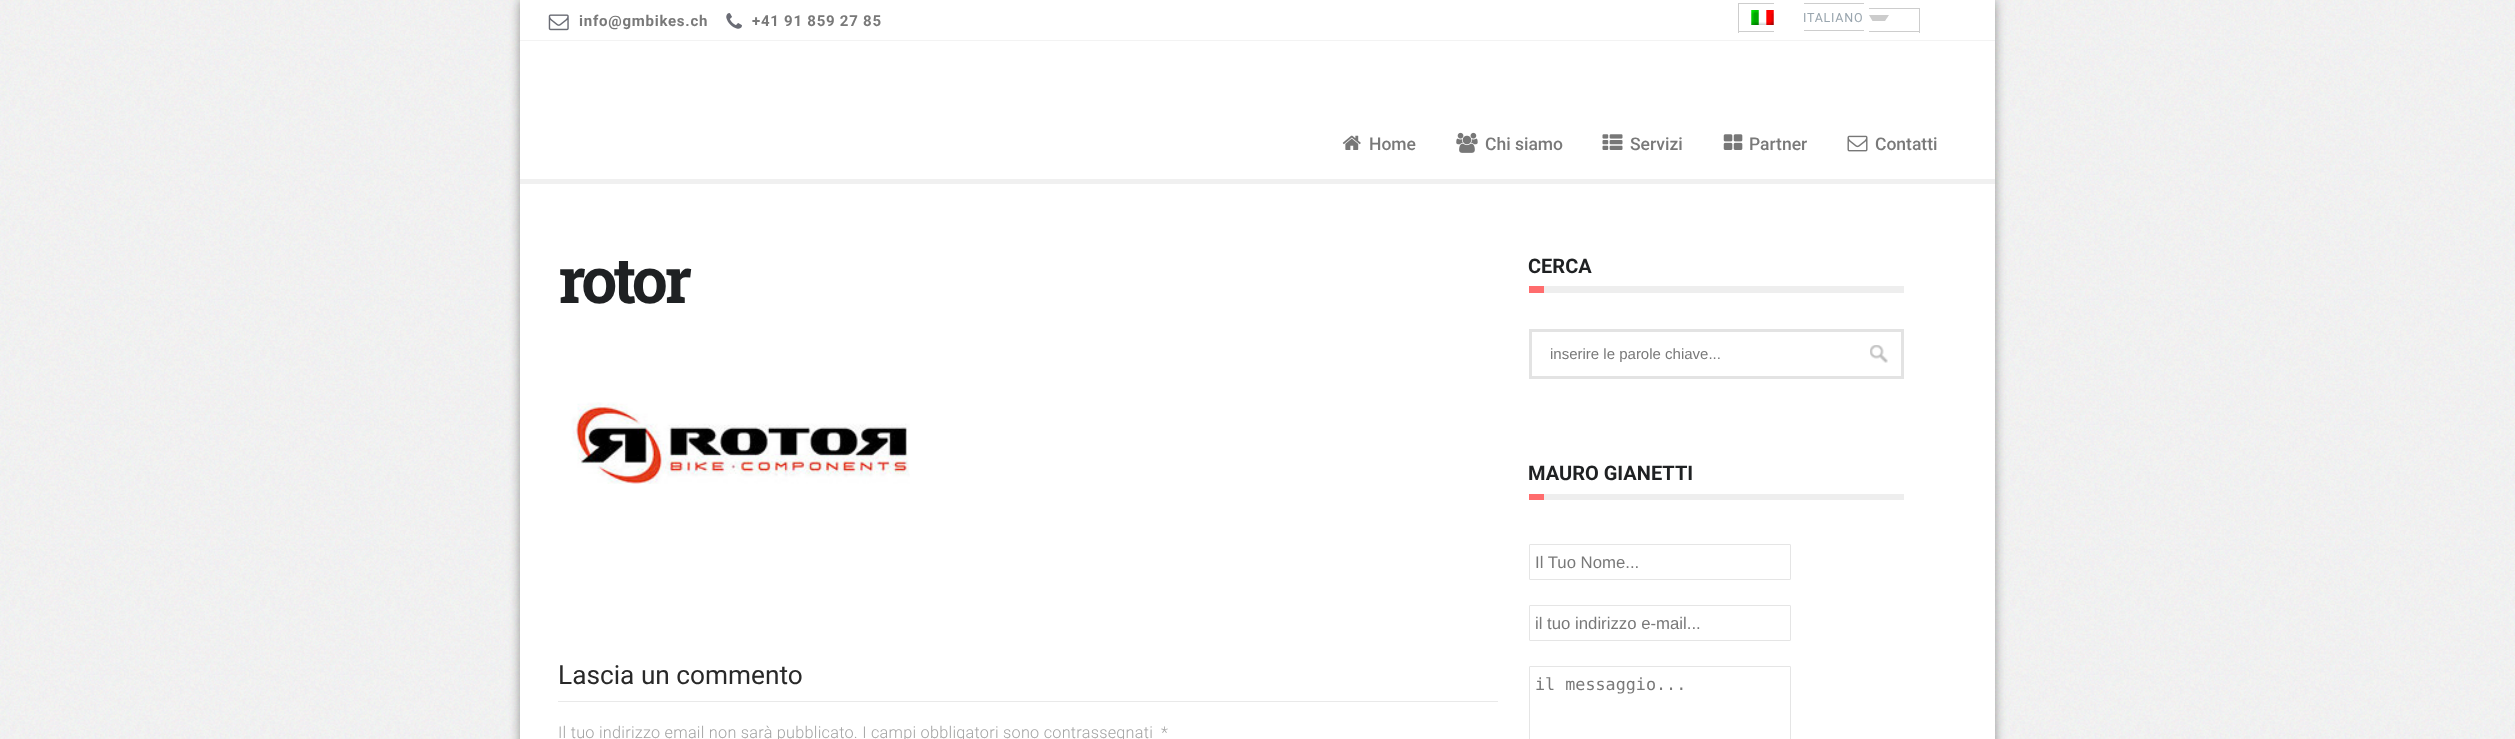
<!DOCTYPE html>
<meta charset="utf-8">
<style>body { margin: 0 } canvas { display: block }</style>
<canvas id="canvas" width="2515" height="739"></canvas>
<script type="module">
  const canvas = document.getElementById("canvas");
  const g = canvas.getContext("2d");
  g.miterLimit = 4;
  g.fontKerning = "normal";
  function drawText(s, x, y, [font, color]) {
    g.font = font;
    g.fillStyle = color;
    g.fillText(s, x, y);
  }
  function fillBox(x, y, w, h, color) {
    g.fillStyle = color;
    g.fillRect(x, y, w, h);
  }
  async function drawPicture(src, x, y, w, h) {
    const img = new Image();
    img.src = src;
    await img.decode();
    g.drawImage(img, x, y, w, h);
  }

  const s1 = ["bold 15px Roboto", "#797979"];
  const s2 = ["12.5px Roboto", "#9AA6AF"];
  const s3 = ["500 17.5px Roboto", "#797979"];
  const s4 = ["bold 64px Roboto Slab", "#1F2123"];
  const s5 = ["26.25px Roboto", "#292929"];
  const s6 = ["300 16.25px Roboto", "#A3A3A3"];
  const s7 = ["bold 20px Roboto", "#1F2123"];
  const s8 = ["15px Liberation Sans", "#797979"];
  const s9 = ["16.75px Liberation Sans", "#797979"];
  const s10 = ["16.75px DejaVu Sans Mono", "#797979"];

  fillBox(0, 0, 2515, 739, "#FFFFFF");
  await drawPicture("pic1.png", 0, 0, 2515, 739);
  g.fillStyle = "rgba(0, 0, 0, 0.4)";
  g.filter = "blur(5.5px)";
  g.beginPath();
  g.rect(520, 0, 1475, 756);
  g.fill();
  g.filter = "none";
  fillBox(520, 0, 1475, 739, "#FFFFFF");
  fillBox(520, 40, 1475, 1, "#F3F3F3");
  await drawPicture("pic2.png", 548, 14, 21, 17);
  g.letterSpacing = "0.75px";
  drawText("info@gmbikes.ch", 579, 26, s1);
  await drawPicture("pic3.png", 726, 13, 16, 16);
  drawText("+41 91 859 27 85", 752, 26, s1);
  fillBox(1738, 3, 36, 1, "#CDCDCD");
  fillBox(1738, 31, 36, 1, "#CDCDCD");
  fillBox(1738, 3, 1, 30, "#CDCDCD");
  fillBox(1804, 3, 60, 1, "#CDCDCD");
  fillBox(1804, 30, 60, 1, "#CDCDCD");
  fillBox(1869, 8, 51, 1, "#CDCDCD");
  fillBox(1919, 8, 1, 25, "#CDCDCD");
  fillBox(1869, 31, 51, 1, "#CDCDCD");
  await drawPicture("pic4.png", 1751, 10, 23, 15);
  drawText("ITALIANO", 1803, 22, s2);
  g.fillStyle = "#CCCCCC";
  g.beginPath();
  g.moveTo(1869, 15);
  g.lineTo(1889, 15);
  g.lineTo(1885, 21);
  g.lineTo(1872.5, 21);
  g.closePath();
  g.fill();
  fillBox(520, 179, 1475, 5, "#F0F0F0");
  await drawPicture("pic5.png", 1342, 135, 19, 15);
  g.letterSpacing = "0px";
  drawText("Home", 1369, 150, s3);
  await drawPicture("pic6.png", 1456, 132, 22, 21);
  drawText("Chi siamo", 1485, 150, s3);
  await drawPicture("pic7.png", 1602, 134, 21, 16);
  drawText("Servizi", 1630, 150, s3);
  await drawPicture("pic8.png", 1723, 134, 20, 16);
  drawText("Partner", 1749, 150, s3);
  await drawPicture("pic9.png", 1847, 135, 21, 17);
  drawText("Contatti", 1875, 150, s3);
  g.letterSpacing = "-3.75px";
  drawText("rotor", 558, 303, s4);
  await drawPicture("pic10.png", 570, 402, 340, 82);
  g.letterSpacing = "0px";
  drawText("Lascia un commento", 558, 684, s5);
  fillBox(558, 701, 940, 1, "#E9E9E9");
  g.letterSpacing = "0.25px";
  drawText("Il tuo indirizzo email non sarà pubblicato. I campi obbligatori sono contrassegnati", 558, 738, s6);
  drawText("*", 1161, 738, s6);
  g.letterSpacing = "0px";
  drawText("CERCA", 1528, 273, s7);
  fillBox(1529, 286, 15, 7, "#FF6C6D");
  fillBox(1544, 286, 360, 7, "#EEEEEE");
  await drawPicture("pic11.png", 1870, 345, 18, 18);
  g.beginPath();
  g.rect(1530.5, 330.5, 372, 47);
  g.strokeStyle = "#E3E3E3";
  g.lineWidth = 3;
  g.stroke();
  drawText("inserire le parole chiave...", 1550, 359, s8);
  drawText("MAURO GIANETTI", 1528, 480, s7);
  fillBox(1529, 494, 15, 6, "#FF6C6D");
  fillBox(1544, 494, 360, 6, "#EEEEEE");
  g.beginPath();
  g.roundRect(1529.5, 544.5, 261, 35, 0.5);
  g.strokeStyle = "#E5E5E5";
  g.lineWidth = 1;
  g.stroke();
  drawText("Il Tuo Nome...", 1535, 568, s9);
  g.beginPath();
  g.roundRect(1529.5, 605.5, 261, 35, 0.5);
  g.stroke();
  drawText("il tuo indirizzo e-mail...", 1535, 629, s9);
  g.beginPath();
  g.roundRect(1529.5, 666.5, 261, 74, 0.5);
  g.stroke();
  drawText("il messaggio...", 1535, 690, s10);
</script>
